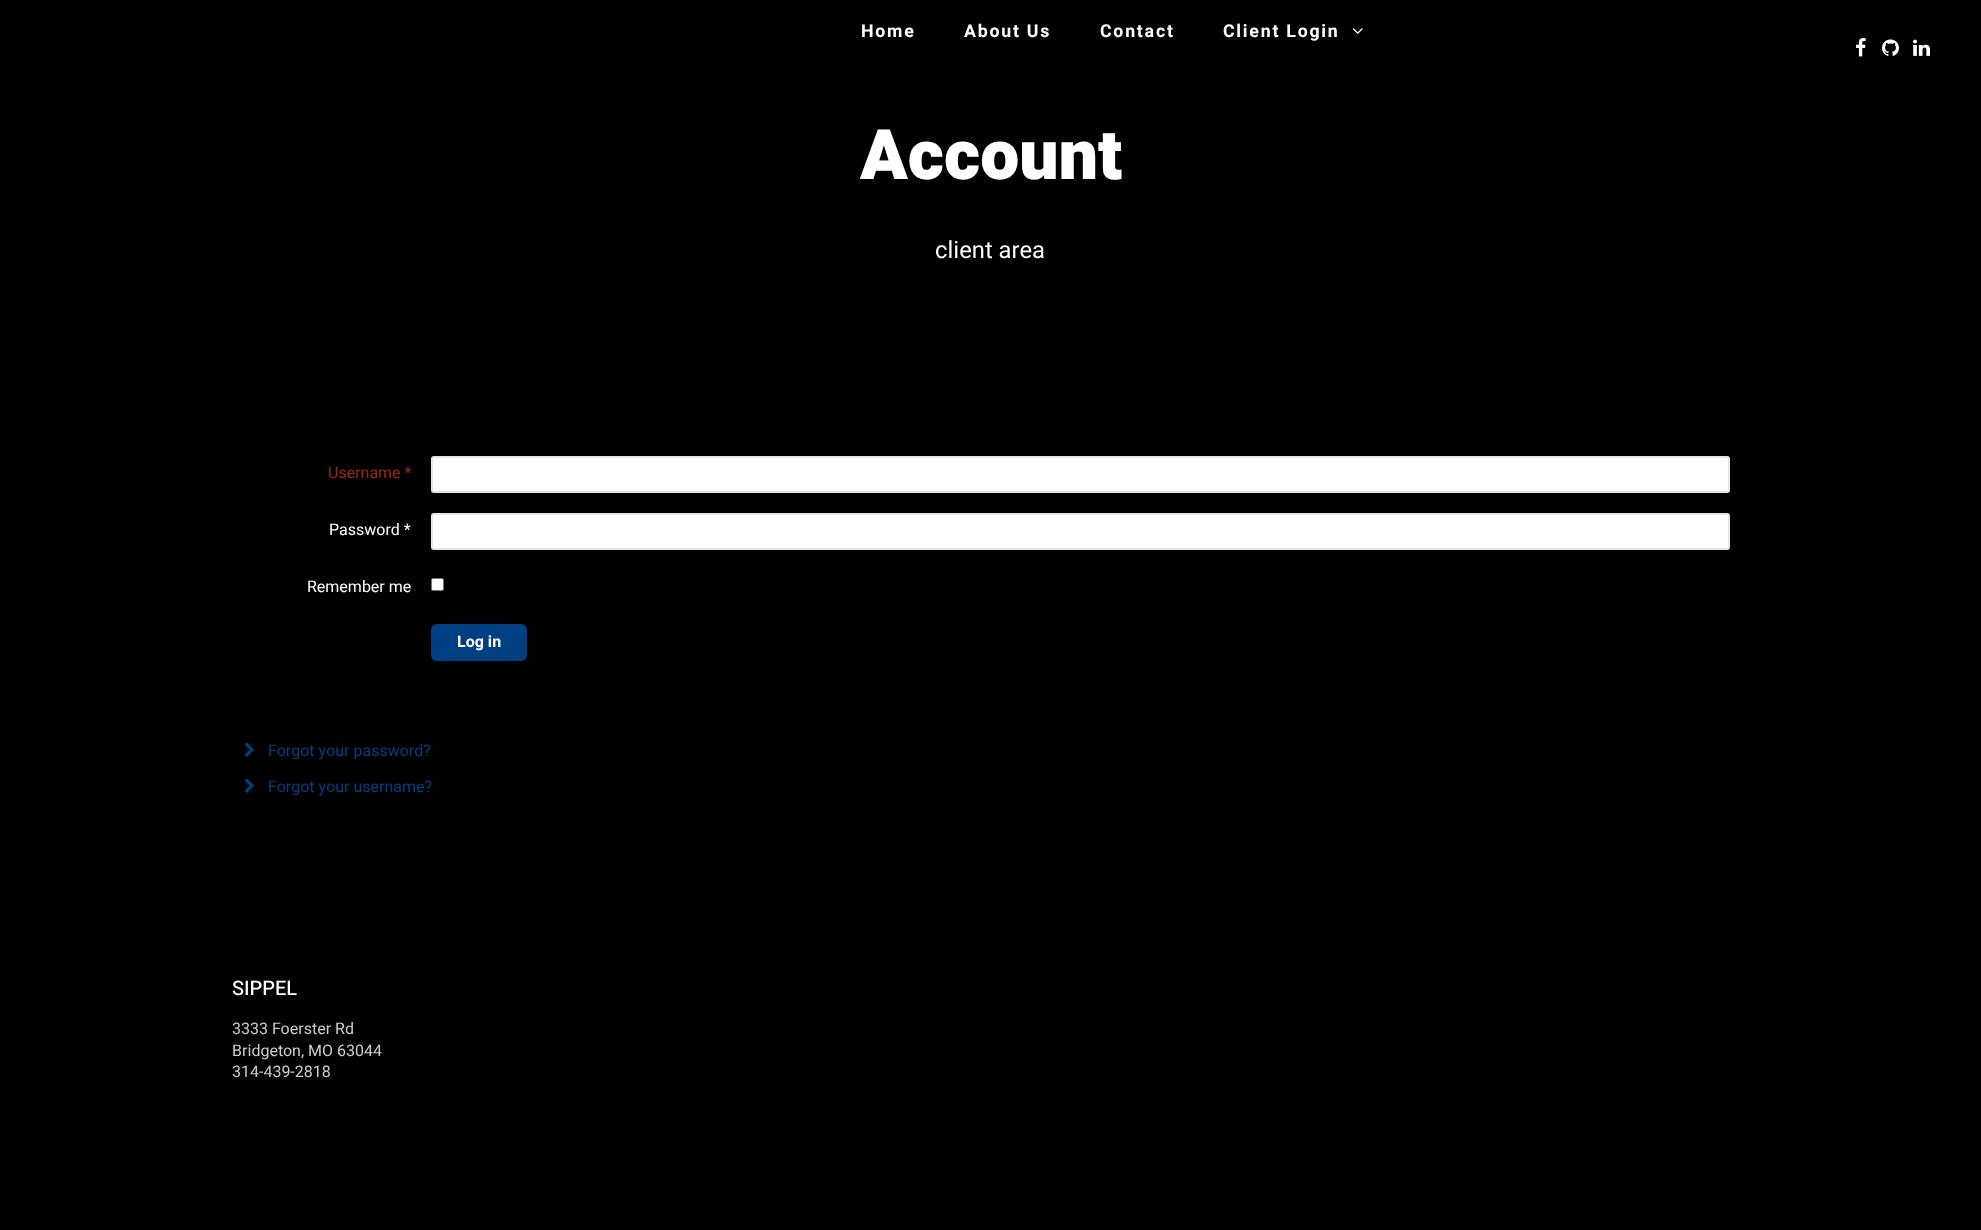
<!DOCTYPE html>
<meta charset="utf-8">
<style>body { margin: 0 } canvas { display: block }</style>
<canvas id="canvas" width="1981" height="1230"></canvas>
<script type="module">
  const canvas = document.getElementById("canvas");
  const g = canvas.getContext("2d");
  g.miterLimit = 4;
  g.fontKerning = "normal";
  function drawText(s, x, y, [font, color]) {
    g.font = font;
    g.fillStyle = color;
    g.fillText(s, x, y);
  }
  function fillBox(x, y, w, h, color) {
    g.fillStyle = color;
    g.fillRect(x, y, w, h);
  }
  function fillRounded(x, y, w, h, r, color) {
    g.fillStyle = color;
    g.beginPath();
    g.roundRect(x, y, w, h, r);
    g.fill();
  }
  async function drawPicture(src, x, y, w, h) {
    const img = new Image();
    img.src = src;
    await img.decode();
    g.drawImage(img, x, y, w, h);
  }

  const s1 = ["bold 17.75px Heebo", "#FFFFFF"];
  const s2 = ["900 69.5px Heebo", "#FFFFFF"];
  const s3 = ["23.75px Heebo", "#FFFFFF"];
  const s4 = ["16px Heebo", "#9D261D"];
  const s5 = ["16px Heebo", "#FFFFFF"];
  const s6 = ["bold 16px Heebo", "#FFFFFF"];
  const s7 = ["16px Heebo", "#003F82"];
  const s8 = ["500 20px Heebo", "#FFFFFF"];
  const s9 = ["16px Heebo", "#CCCCCC"];

  fillBox(0, 0, 1981, 1230, "#000000");
  g.letterSpacing = "1.75px";
  drawText("Home", 861, 37, s1);
  drawText("About Us", 964, 37, s1);
  drawText("Contact", 1100, 37, s1);
  drawText("Client Login", 1223, 37, s1);
  await drawPicture("pic1.png", 1352, 28, 11, 6);
  await drawPicture("pic2.png", 1856, 38, 10, 19);
  await drawPicture("pic3.png", 1882, 39, 17, 17);
  await drawPicture("pic4.png", 1913, 39, 17, 17);
  g.letterSpacing = "0px";
  drawText("Account", 860, 179, s2);
  drawText("client area", 935, 258, s3);
  drawText("Username *", 328, 478, s4);
  fillRounded(431, 456, 1299, 37, 3, "#FFFFFF");
  g.beginPath();
  g.roundRect(432, 457, 1297, 35, 2);
  g.strokeStyle = "rgba(0, 0, 0, 0.1)";
  g.lineWidth = 2;
  g.stroke();
  drawText("Password *", 329, 535, s5);
  fillRounded(431, 513, 1299, 37, 3, "#FFFFFF");
  g.beginPath();
  g.roundRect(432, 514, 1297, 35, 2);
  g.stroke();
  drawText("Remember me", 307, 592, s5);
  g.beginPath();
  g.roundRect(431.5, 578.5, 12, 12, 1.5);
  g.fill();
  g.strokeStyle = "#767676";
  g.lineWidth = 1;
  g.stroke();
  fillRounded(431, 624, 96, 37, 6, "#003F82");
  drawText("Log in", 457, 647, s6);
  await drawPicture("pic5.png", 244, 742, 10, 15);
  drawText("Forgot your password?", 268, 756, s7);
  await drawPicture("pic5.png", 244, 778, 10, 15);
  drawText("Forgot your username?", 268, 792, s7);
  drawText("SIPPEL", 232, 995, s8);
  drawText("3333 Foerster Rd", 232, 1034, s9);
  drawText("Bridgeton, MO 63044", 232, 1056, s9);
  drawText("314-439-2818", 232, 1077, s9);
</script>
